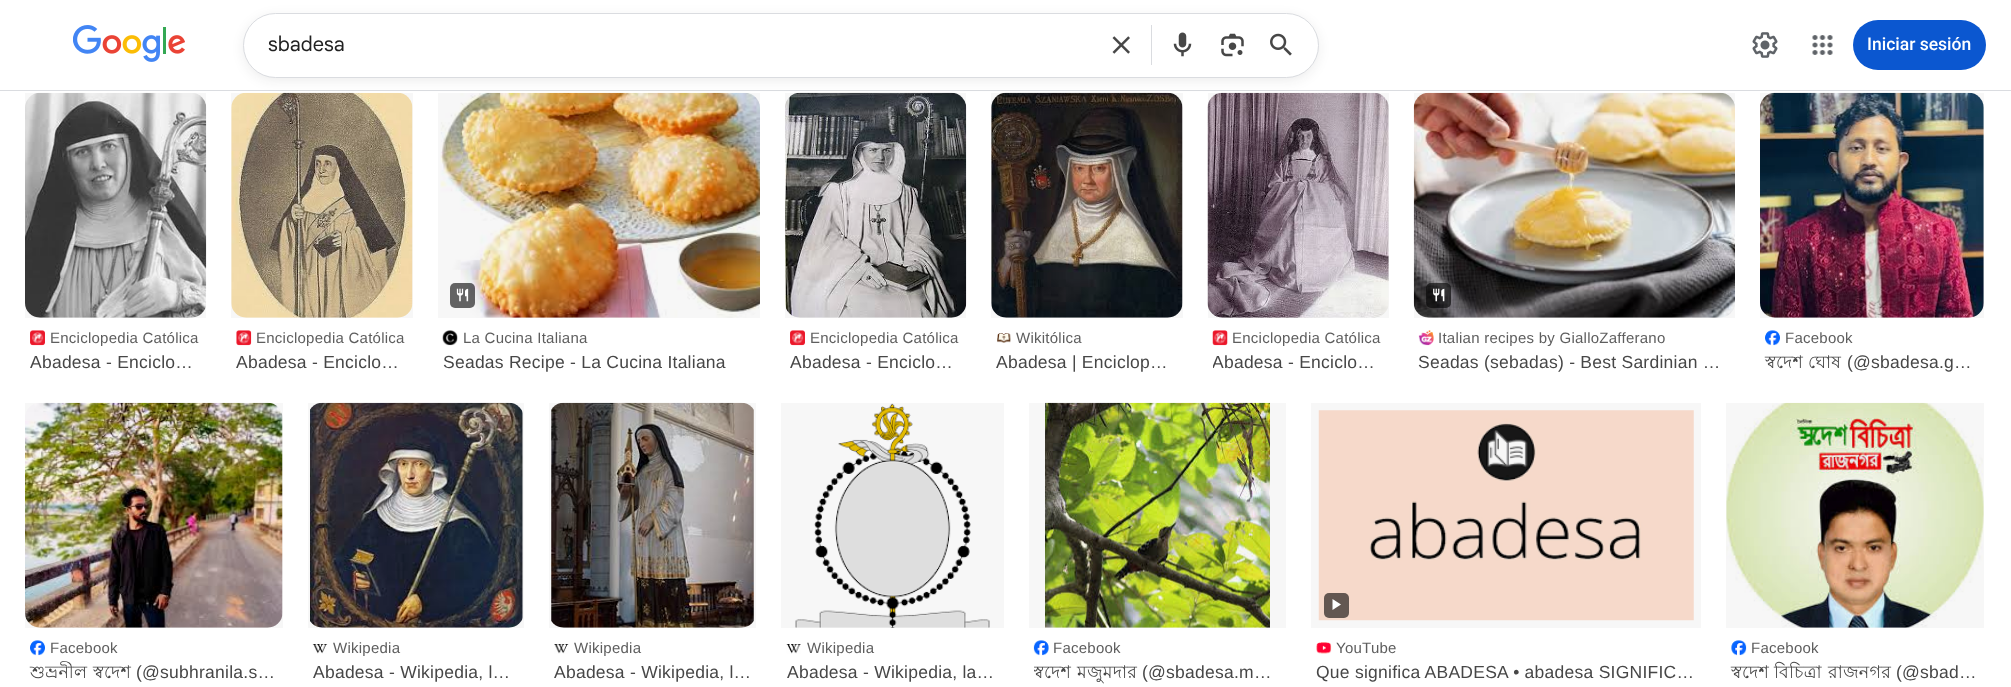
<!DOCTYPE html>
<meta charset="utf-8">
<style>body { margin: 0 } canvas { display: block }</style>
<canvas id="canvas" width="2011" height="687"></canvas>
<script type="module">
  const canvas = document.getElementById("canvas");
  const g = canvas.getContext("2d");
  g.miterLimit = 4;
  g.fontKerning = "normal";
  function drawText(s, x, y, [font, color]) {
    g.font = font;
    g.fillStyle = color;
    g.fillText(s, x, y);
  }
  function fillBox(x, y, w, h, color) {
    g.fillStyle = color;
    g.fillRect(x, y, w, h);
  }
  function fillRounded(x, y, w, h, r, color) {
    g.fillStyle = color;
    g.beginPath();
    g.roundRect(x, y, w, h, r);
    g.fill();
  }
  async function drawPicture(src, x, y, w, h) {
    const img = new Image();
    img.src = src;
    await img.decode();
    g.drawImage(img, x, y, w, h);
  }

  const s1 = ["20px Google Sans", "#212121"];
  const s2 = ["500 17.5px Roboto", "#FFFFFF"];
  const s3 = ["15px Liberation Sans", "#5E5E5E"];
  const s4 = ["17.5px Liberation Sans", "#474747"];
  const s5 = ["17.5px Lohit Bengali", "#474747"];

  fillBox(0, 0, 2011, 687, "#FFFFFF");
  fillBox(0, 90, 2011, 1, "#DADCE0");
  await drawPicture("pic1.png", 73, 25, 112, 37);
  await drawPicture("pic10.png", 231, 92, 182, 226);
  fillBox(231, 93, 182, 225, "rgba(0, 0, 0, 0.03)");
  await drawPicture("pic12.png", 440, 92, 320, 226);
  fillBox(438, 93, 322, 225, "rgba(0, 0, 0, 0.03)");
  await drawPicture("pic15.png", 785, 92, 182, 226);
  fillBox(785, 93, 181, 225, "rgba(0, 0, 0, 0.03)");
  await drawPicture("pic17.png", 991, 92, 192, 226);
  fillBox(991, 93, 192, 225, "rgba(0, 0, 0, 0.03)");
  await drawPicture("pic19.png", 1207, 92, 182, 226);
  fillBox(1208, 93, 181, 225, "rgba(0, 0, 0, 0.03)");
  g.fillStyle = "rgba(31, 31, 31, 0.08)";
  g.filter = "blur(6px)";
  g.beginPath();
  g.roundRect(243, 16, 1076, 65, 32.5);
  g.fill();
  g.filter = "none";
  g.fillStyle = "#FFFFFF";
  g.beginPath();
  g.roundRect(243.5, 13.5, 1075, 64, 32);
  g.fill();
  g.strokeStyle = "#DADCE0";
  g.stroke();
  drawText("sbadesa", 268, 51, s1);
  await drawPicture("pic2.png", 1112, 36, 18, 18);
  fillBox(1151, 25, 1, 40, "#DADCE0");
  await drawPicture("pic3.png", 1173, 32, 19, 25);
  await drawPicture("pic4.png", 1221, 33, 23, 24);
  await drawPicture("pic5.png", 1270, 33, 22, 23);
  await drawPicture("pic6.png", 1752, 32, 26, 26);
  await drawPicture("pic7.png", 1812, 35, 21, 20);
  fillRounded(1853, 20, 133, 50, 25, "#0B57D0");
  drawText("Iniciar sesión", 1867, 50, s2);
  await drawPicture("pic8.png", 25, 92, 182, 226);
  fillBox(25, 93, 181, 225, "rgba(0, 0, 0, 0.03)");
  await drawPicture("pic9.png", 30, 330, 15, 16);
  g.letterSpacing = "0.25px";
  drawText("Enciclopedia Católica", 50, 343, s3);
  drawText("Abadesa - Enciclo…", 30, 368, s4);
  await drawPicture("pic11.png", 236, 330, 16, 16);
  drawText("Enciclopedia Católica", 256, 343, s3);
  drawText("Abadesa - Enciclo…", 236, 368, s4);
  fillRounded(450, 283, 25, 25, 5, "rgba(0, 0, 0, 0.6)");
  await drawPicture("pic13.png", 456, 288, 13, 14);
  await drawPicture("pic14.png", 442, 330, 16, 16);
  drawText("La Cucina Italiana", 463, 343, s3);
  drawText("Seadas Recipe - La Cucina Italiana", 443, 368, s4);
  await drawPicture("pic16.png", 790, 330, 15, 16);
  drawText("Enciclopedia Católica", 810, 343, s3);
  drawText("Abadesa - Enciclo…", 790, 368, s4);
  await drawPicture("pic18.png", 997, 333, 14, 10);
  drawText("Wikitólica", 1016, 343, s3);
  drawText("Abadesa | Enciclop…", 996, 368, s4);
  await drawPicture("pic20.png", 1212, 330, 16, 16);
  drawText("Enciclopedia Católica", 1232, 343, s3);
  g.save();
  g.beginPath();
  g.rect(1213, 348, 171, 27);
  g.clip();
  drawText("Abadesa - Enciclo…", 1212, 368, s4);
  g.restore();
  await drawPicture("pic21.png", 1413, 92, 322, 226);
  fillBox(1414, 93, 321, 225, "rgba(0, 0, 0, 0.03)");
  fillRounded(1426, 283, 25, 25, 5, "rgba(0, 0, 0, 0.6)");
  await drawPicture("pic22.png", 1433, 288, 12, 14);
  await drawPicture("pic23.png", 1418, 330, 16, 16);
  drawText("Italian recipes by GialloZafferano", 1438, 343, s3);
  drawText("Seadas (sebadas) - Best Sardinian …", 1418, 368, s4);
  await drawPicture("pic24.png", 1760, 92, 224, 226);
  fillBox(1760, 93, 224, 225, "rgba(0, 0, 0, 0.03)");
  await drawPicture("pic25.png", 1765, 330, 15, 16);
  drawText("Facebook", 1785, 343, s3);
  drawText("স্বদেশ ঘোষ", 1765, 368, s5);
  drawText("(@sbadesa.g…", 1847, 368, s4);
  await drawPicture("pic26.png", 25, 402, 258, 226);
  fillBox(25, 403, 258, 225, "rgba(0, 0, 0, 0.03)");
  await drawPicture("pic27.png", 30, 640, 15, 16);
  drawText("Facebook", 50, 653, s3);
  drawText("শুভ্রনীল", 30, 678, s5);
  drawText("স্বদেশ", 93, 678, s5);
  drawText("(@subhranila.s…", 136, 678, s4);
  await drawPicture("pic28.png", 310, 402, 213, 226);
  fillBox(308, 403, 216, 225, "rgba(0, 0, 0, 0.03)");
  await drawPicture("pic29.png", 312, 644, 16, 10);
  drawText("Wikipedia", 333, 653, s3);
  drawText("Abadesa - Wikipedia, l…", 313, 678, s4);
  await drawPicture("pic30.png", 551, 402, 203, 226);
  fillBox(549, 403, 207, 225, "rgba(0, 0, 0, 0.03)");
  await drawPicture("pic31.png", 554, 644, 15, 10);
  drawText("Wikipedia", 574, 653, s3);
  drawText("Abadesa - Wikipedia, l…", 554, 678, s4);
  await drawPicture("pic32.png", 795, 403, 195, 225);
  fillBox(781, 403, 223, 225, "rgba(0, 0, 0, 0.03)");
  await drawPicture("pic33.png", 786, 644, 15, 10);
  drawText("Wikipedia", 807, 653, s3);
  drawText("Abadesa - Wikipedia, la…", 787, 678, s4);
  await drawPicture("pic34.png", 1045, 402, 225, 226);
  fillBox(1029, 403, 257, 225, "rgba(0, 0, 0, 0.03)");
  await drawPicture("pic35.png", 1033, 640, 16, 16);
  drawText("Facebook", 1053, 653, s3);
  g.save();
  g.beginPath();
  g.rect(1034, 658, 247, 27);
  g.clip();
  drawText("স্বদেশ", 1033, 678, s5);
  g.restore();
  drawText("মজুমদার", 1077, 678, s5);
  drawText("(@sbadesa.m…", 1142, 678, s4);
  await drawPicture("pic36.png", 1318, 410, 376, 211);
  fillBox(1311, 403, 390, 225, "rgba(0, 0, 0, 0.03)");
  fillRounded(1324, 593, 25, 25, 5, "#635751");
  g.fillStyle = "#FFFFFF";
  g.beginPath();
  g.moveTo(1332.5, 599);
  g.lineTo(1332.5, 610);
  g.lineTo(1341, 604.5);
  g.closePath();
  g.fill();
  await drawPicture("pic37.png", 1316, 642, 16, 12);
  drawText("YouTube", 1336, 653, s3);
  drawText("Que significa ABADESA • abadesa SIGNIFIC…", 1316, 678, s4);
  await drawPicture("pic38.png", 1726, 402, 258, 226);
  fillBox(1726, 403, 258, 225, "rgba(0, 0, 0, 0.03)");
  await drawPicture("pic39.png", 1731, 640, 16, 16);
  drawText("Facebook", 1751, 653, s3);
  drawText("স্বদেশ", 1731, 678, s5);
  drawText("বিচিত্রা", 1774, 678, s5);
  drawText("রাজনগর", 1828, 678, s5);
  drawText("(@sbad…", 1896, 678, s4);
</script>
